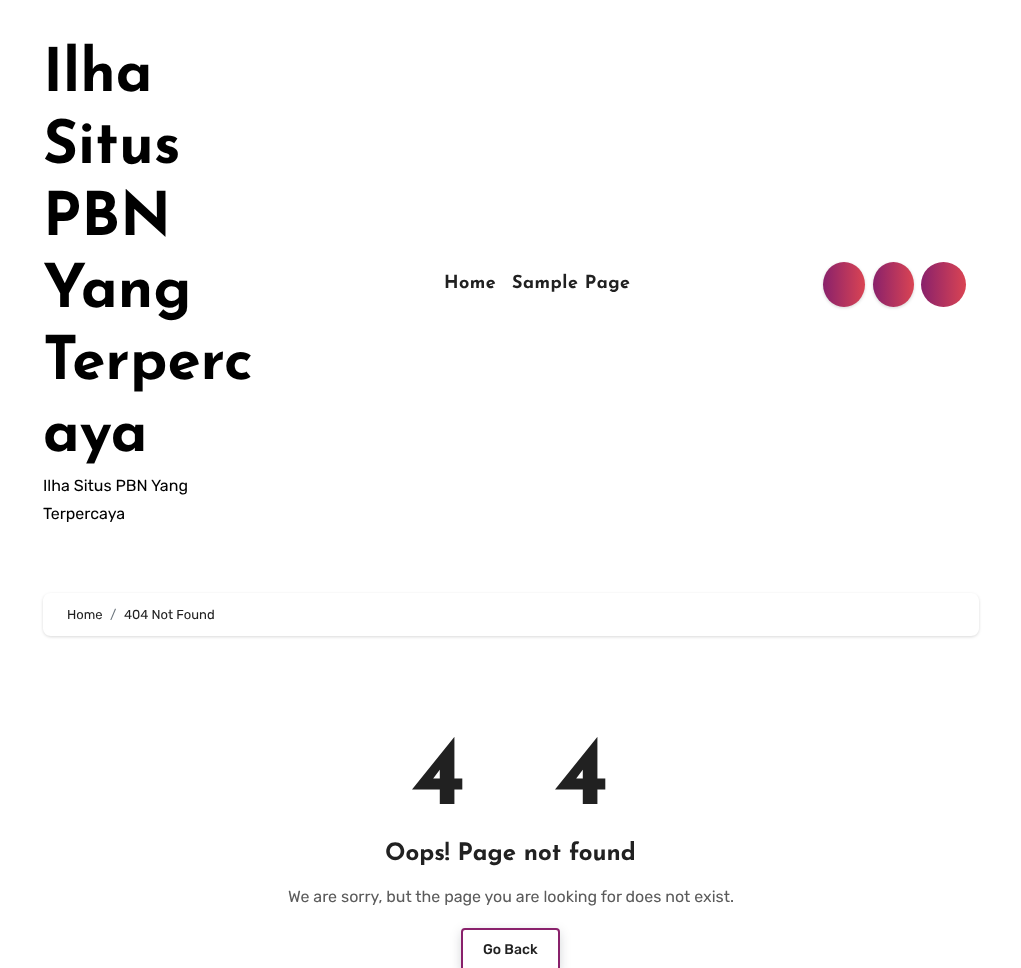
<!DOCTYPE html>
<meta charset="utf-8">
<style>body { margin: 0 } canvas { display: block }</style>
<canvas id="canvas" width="1021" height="968"></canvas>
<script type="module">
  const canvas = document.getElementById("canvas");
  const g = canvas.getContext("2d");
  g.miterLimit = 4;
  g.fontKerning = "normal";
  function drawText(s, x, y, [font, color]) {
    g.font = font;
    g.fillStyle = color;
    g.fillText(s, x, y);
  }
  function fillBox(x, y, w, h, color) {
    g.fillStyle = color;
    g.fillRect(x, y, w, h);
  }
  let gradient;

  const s1 = ["bold 60px Josefin Sans", "#000000"];
  const s2 = ["300 16px Rubik", "#000000"];
  const s3 = ["bold 18px Josefin Sans", "#212121"];
  const s4 = ["300 13px Rubik", "#212121"];
  const s5 = ["300 13px Rubik", "#6C757D"];
  const s6 = ["bold 100px Josefin Sans", "#212121"];
  const s7 = ["bold 24px Josefin Sans", "#212121"];
  const s8 = ["300 16px Rubik", "#5B5B5B"];
  const s9 = ["500 14px Rubik", "#212121"];

  fillBox(0, 0, 1021, 968, "#FFFFFF");
  drawText("Ilha", 43, 91, s1);
  drawText("Situs", 43, 163, s1);
  drawText("PBN", 43, 235, s1);
  drawText("Yang", 43, 307, s1);
  drawText("Terperc", 43, 379, s1);
  drawText("aya", 43, 451, s1);
  drawText("Ilha Situs PBN Yang", 43, 491, s2);
  drawText("Terpercaya", 43, 519, s2);
  g.letterSpacing = "0.5px";
  drawText("Home", 444, 288, s3);
  drawText("Sample Page", 512, 288, s3);
  g.fillStyle = "rgba(0, 0, 0, 0.15)";
  g.filter = "blur(1.5px)";
  g.beginPath();
  g.roundRect(823, 263, 42, 45, 21);
  g.fill();
  g.filter = "none";
  gradient = g.createLinearGradient(823, 285, 865, 285);
  gradient.addColorStop(0, "#89216B");
  gradient.addColorStop(1, "#DA4453");
  g.fillStyle = gradient;
  g.beginPath();
  g.ellipse(844, 284.5, 21, 22.5, 0, 0, Math.PI * 2);
  g.fill();
  g.fillStyle = "rgba(0, 0, 0, 0.15)";
  g.filter = "blur(1.5px)";
  g.beginPath();
  g.roundRect(873, 263, 41, 45, 20.5);
  g.fill();
  g.filter = "none";
  gradient = g.createLinearGradient(873, 285, 914, 285);
  gradient.addColorStop(0, "#89216B");
  gradient.addColorStop(1, "#DA4453");
  g.fillStyle = gradient;
  g.beginPath();
  g.ellipse(893.5, 284.5, 20.5, 22.5, 0, 0, Math.PI * 2);
  g.fill();
  gradient = g.createLinearGradient(921, 285, 966, 285);
  gradient.addColorStop(0, "#89216B");
  gradient.addColorStop(1, "#DA4453");
  g.fillStyle = gradient;
  g.beginPath();
  g.arc(943.5, 284.5, 22.5, 0, Math.PI * 2);
  g.fill();
  g.save();
  g.beginPath();
  g.moveTo(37, 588);
  g.lineTo(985, 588);
  g.lineTo(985, 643);
  g.lineTo(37, 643);
  g.closePath();
  g.moveTo(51, 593);
  g.lineTo(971, 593);
  g.bezierCurveTo(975.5, 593, 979, 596.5, 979, 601);
  g.lineTo(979, 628);
  g.bezierCurveTo(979, 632.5, 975.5, 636, 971, 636);
  g.lineTo(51, 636);
  g.bezierCurveTo(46.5, 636, 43, 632.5, 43, 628);
  g.lineTo(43, 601);
  g.bezierCurveTo(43, 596.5, 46.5, 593, 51, 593);
  g.closePath();
  g.clip("evenodd");
  g.fillStyle = "rgba(0, 0, 0, 0.15)";
  g.filter = "blur(1.5px)";
  g.beginPath();
  g.roundRect(43, 594, 936, 43, 8);
  g.fill();
  g.filter = "none";
  g.restore();
  g.letterSpacing = "0px";
  drawText("Home", 67, 619, s4);
  drawText("/", 110, 619, s5);
  drawText("404 Not Found", 124, 619, s4);
  drawText("4", 411, 804, s6);
  drawText("4", 554, 804, s6);
  drawText("Oops! Page not found", 385, 860, s7);
  drawText("We are sorry, but the page you are looking for does not exist.", 288, 902, s8);
  g.save();
  g.beginPath();
  g.moveTo(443, 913);
  g.lineTo(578, 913);
  g.lineTo(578, 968);
  g.lineTo(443, 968);
  g.closePath();
  g.moveTo(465, 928);
  g.lineTo(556, 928);
  g.bezierCurveTo(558, 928, 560, 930, 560, 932);
  g.lineTo(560, 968);
  g.bezierCurveTo(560, 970, 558, 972, 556, 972);
  g.lineTo(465, 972);
  g.bezierCurveTo(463, 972, 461, 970, 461, 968);
  g.lineTo(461, 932);
  g.bezierCurveTo(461, 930, 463, 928, 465, 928);
  g.closePath();
  g.clip("evenodd");
  g.fillStyle = "rgba(7, 10, 25, 0.2)";
  g.filter = "blur(6px)";
  g.beginPath();
  g.roundRect(462, 932, 97, 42, 3);
  g.fill();
  g.filter = "none";
  g.restore();
  g.beginPath();
  g.roundRect(462, 929, 97, 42, 3);
  g.strokeStyle = "#89216B";
  g.lineWidth = 2;
  g.stroke();
  drawText("Go Back", 483, 954, s9);
</script>
